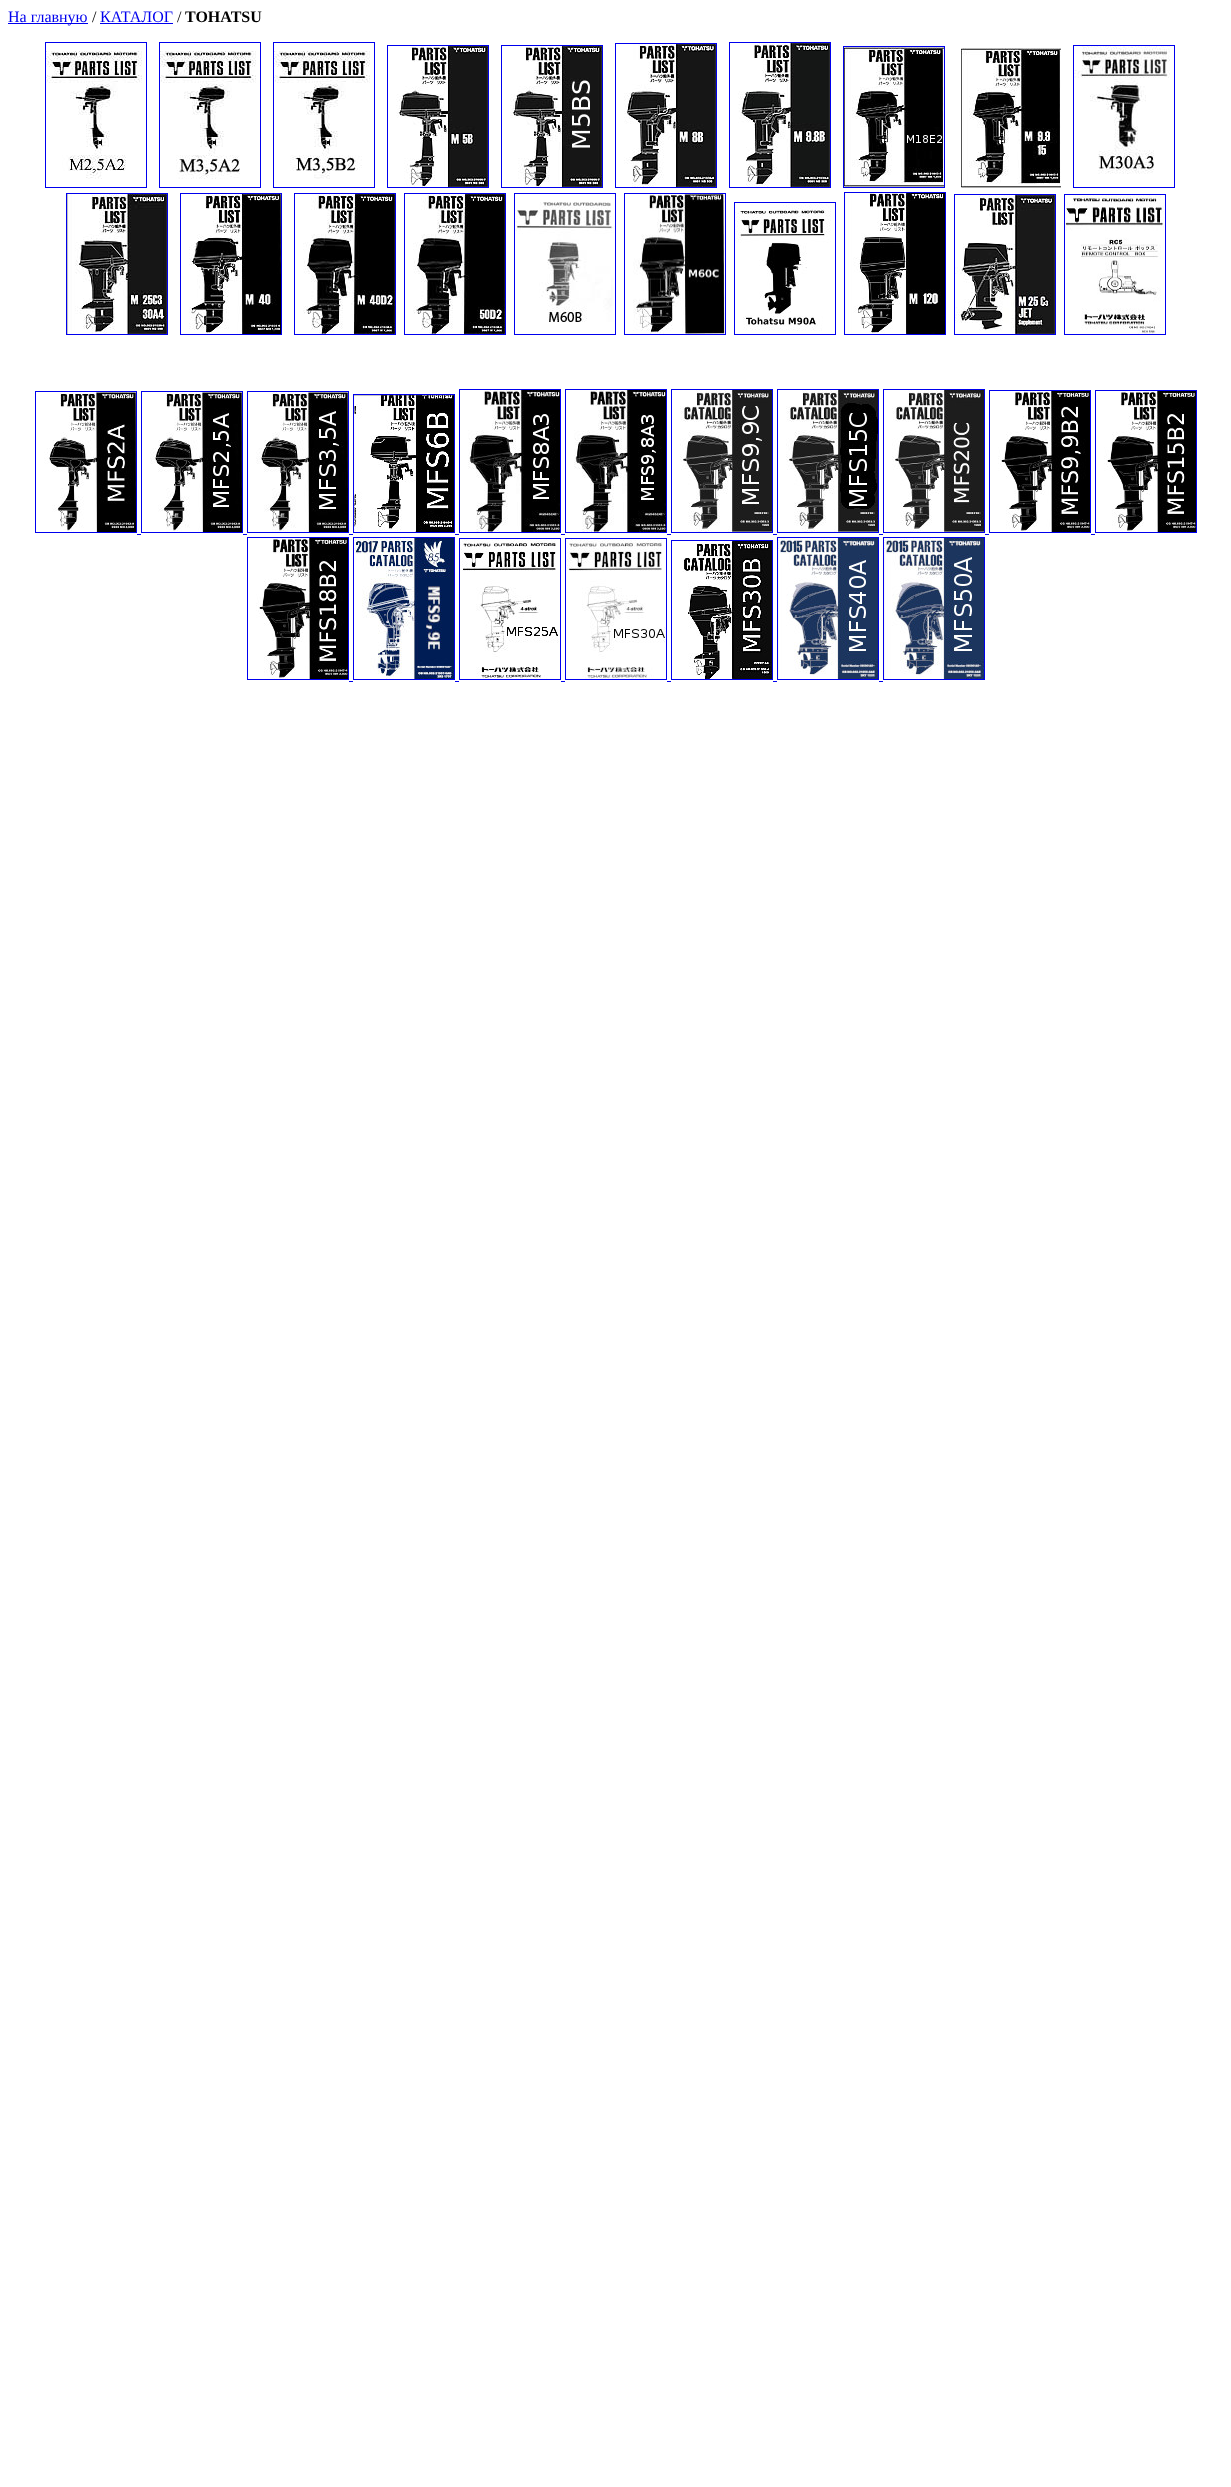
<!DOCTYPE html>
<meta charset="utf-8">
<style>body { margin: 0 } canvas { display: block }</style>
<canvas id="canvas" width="1231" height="2487"></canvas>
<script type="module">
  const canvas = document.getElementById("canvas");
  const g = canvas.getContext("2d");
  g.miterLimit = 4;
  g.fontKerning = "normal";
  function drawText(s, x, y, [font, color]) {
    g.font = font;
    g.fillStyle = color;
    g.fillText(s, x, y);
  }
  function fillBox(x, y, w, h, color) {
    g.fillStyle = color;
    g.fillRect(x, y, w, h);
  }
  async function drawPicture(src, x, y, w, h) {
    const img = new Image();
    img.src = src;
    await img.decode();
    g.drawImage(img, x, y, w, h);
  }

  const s1 = ["16px Liberation Serif", "#0000EE"];
  const s2 = ["16px Liberation Serif", "#000000"];
  const s3 = ["bold 16px Liberation Serif", "#000000"];

  fillBox(0, 0, 1231, 2487, "#FFFFFF");
  fillBox(8, 23, 80, 1, "#0000EE");
  drawText("На главную", 8, 22, s1);
  drawText("/", 92, 22, s2);
  drawText("КАТАЛОГ", 100, 22, s1);
  fillBox(100, 23, 73, 1, "#0000EE");
  drawText("/", 177, 22, s2);
  drawText("TOHATSU", 185, 22, s3);
  g.strokeStyle = "#0000EE";
  g.strokeRect(45.5, 42.5, 101, 145);
  g.strokeRect(159.5, 42.5, 101, 145);
  g.strokeRect(273.5, 42.5, 101, 145);
  g.strokeRect(615.5, 43.5, 101, 144);
  g.strokeRect(729.5, 42.5, 101, 145);
  g.strokeRect(387.5, 45.5, 101, 142);
  g.strokeRect(501.5, 45.5, 101, 142);
  await drawPicture("pic1.png", 624, 44, 92, 143);
  await drawPicture("pic2.png", 738, 43, 92, 144);
  g.strokeRect(1073.5, 45.5, 101, 142);
  await drawPicture("pic3.png", 396, 46, 92, 141);
  await drawPicture("pic4.png", 510, 46, 92, 141);
  g.strokeRect(843.5, 46.5, 101, 141);
  await drawPicture("pic5.png", 1074, 46, 96, 128);
  await drawPicture("pic6.png", 46, 51, 96, 128);
  await drawPicture("pic7.png", 160, 51, 96, 128);
  await drawPicture("pic8.png", 274, 51, 96, 128);
  await drawPicture("pic9.png", 844, 47, 100, 140);
  await drawPicture("pic10.png", 961, 48, 100, 140);
  g.strokeRect(66.5, 193.5, 101, 141);
  g.strokeRect(180.5, 193.5, 101, 141);
  g.strokeRect(294.5, 193.5, 101, 141);
  g.strokeRect(404.5, 193.5, 101, 141);
  g.strokeRect(514.5, 193.5, 101, 141);
  g.strokeRect(624.5, 193.5, 101, 141);
  g.strokeRect(844.5, 192.5, 101, 142);
  await drawPicture("pic11.png", 67, 194, 100, 140);
  await drawPicture("pic12.png", 189, 194, 92, 140);
  await drawPicture("pic13.png", 303, 194, 92, 140);
  await drawPicture("pic14.png", 413, 194, 92, 140);
  await drawPicture("pic15.png", 633, 194, 92, 140);
  await drawPicture("pic16.png", 845, 193, 100, 141);
  g.strokeRect(954.5, 194.5, 101, 140);
  g.strokeRect(1064.5, 194.5, 101, 140);
  await drawPicture("pic17.png", 515, 202, 100, 120);
  g.strokeRect(734.5, 202.5, 101, 132);
  await drawPicture("pic18.png", 955, 195, 100, 139);
  await drawPicture("pic19.png", 1065, 195, 100, 139);
  await drawPicture("pic20.png", 735, 203, 96, 128);
  g.strokeRect(459.5, 389.5, 101, 143);
  g.strokeRect(565.5, 389.5, 101, 143);
  g.strokeRect(671.5, 389.5, 101, 143);
  g.strokeRect(777.5, 389.5, 101, 143);
  g.strokeRect(883.5, 389.5, 101, 143);
  g.strokeRect(35.5, 391.5, 101, 141);
  g.strokeRect(141.5, 391.5, 101, 141);
  g.strokeRect(247.5, 391.5, 101, 141);
  await drawPicture("pic21.png", 468, 390, 92, 142);
  await drawPicture("pic22.png", 574, 390, 92, 142);
  await drawPicture("pic23.png", 672, 390, 100, 142);
  await drawPicture("pic24.png", 778, 390, 100, 142);
  await drawPicture("pic25.png", 884, 390, 100, 142);
  g.strokeRect(989.5, 390.5, 101, 142);
  g.strokeRect(1095.5, 390.5, 101, 142);
  await drawPicture("pic26.png", 44, 392, 92, 140);
  await drawPicture("pic27.png", 150, 392, 92, 140);
  await drawPicture("pic28.png", 256, 392, 92, 140);
  g.strokeRect(353.5, 394.5, 101, 138);
  await drawPicture("pic29.png", 998, 391, 92, 141);
  await drawPicture("pic30.png", 1104, 391, 92, 141);
  await drawPicture("pic31.png", 354, 395, 100, 137);
  fillBox(137, 534, 4, 1, "#0000EE");
  fillBox(243, 534, 4, 1, "#0000EE");
  fillBox(349, 534, 4, 1, "#0000EE");
  fillBox(455, 534, 4, 1, "#0000EE");
  fillBox(561, 534, 4, 1, "#0000EE");
  fillBox(667, 534, 4, 1, "#0000EE");
  fillBox(773, 534, 4, 1, "#0000EE");
  fillBox(879, 534, 4, 1, "#0000EE");
  fillBox(985, 534, 4, 1, "#0000EE");
  fillBox(1091, 534, 4, 1, "#0000EE");
  g.strokeRect(247.5, 537.5, 101, 142);
  g.strokeRect(353.5, 537.5, 101, 142);
  g.strokeRect(777.5, 537.5, 101, 142);
  g.strokeRect(883.5, 537.5, 101, 142);
  await drawPicture("pic32.png", 256, 538, 92, 141);
  await drawPicture("pic33.png", 354, 538, 100, 141);
  g.strokeRect(459.5, 538.5, 101, 141);
  g.strokeRect(565.5, 538.5, 101, 141);
  await drawPicture("pic34.png", 778, 538, 100, 141);
  await drawPicture("pic35.png", 884, 538, 100, 141);
  await drawPicture("pic36.png", 460, 539, 99, 140);
  await drawPicture("pic37.png", 566, 539, 100, 140);
  g.strokeRect(671.5, 540.5, 101, 139);
  await drawPicture("pic38.png", 681, 541, 91, 138);
  fillBox(349, 681, 4, 1, "#0000EE");
  fillBox(455, 681, 4, 1, "#0000EE");
  fillBox(561, 681, 4, 1, "#0000EE");
  fillBox(667, 681, 4, 1, "#0000EE");
  fillBox(773, 681, 4, 1, "#0000EE");
  fillBox(879, 681, 4, 1, "#0000EE");
</script>
